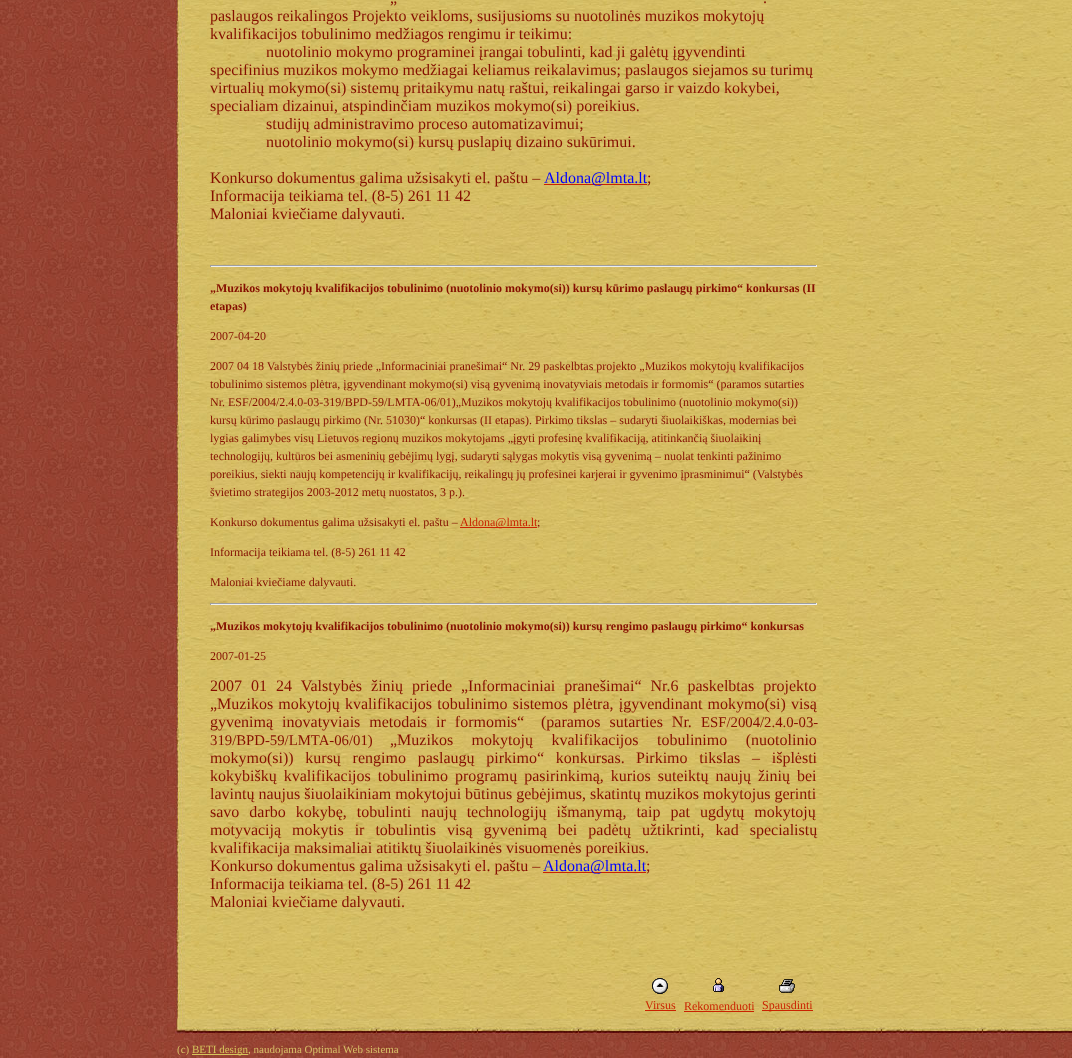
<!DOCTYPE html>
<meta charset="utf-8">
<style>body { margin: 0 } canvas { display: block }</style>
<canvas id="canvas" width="1072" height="1058"></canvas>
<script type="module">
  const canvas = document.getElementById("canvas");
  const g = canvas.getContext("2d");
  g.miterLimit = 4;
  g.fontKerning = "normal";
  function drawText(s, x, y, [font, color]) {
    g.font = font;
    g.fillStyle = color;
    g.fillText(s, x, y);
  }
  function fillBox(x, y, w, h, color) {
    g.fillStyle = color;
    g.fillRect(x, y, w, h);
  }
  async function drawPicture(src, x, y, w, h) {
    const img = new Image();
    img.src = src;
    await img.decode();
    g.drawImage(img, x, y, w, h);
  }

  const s1 = ["16px Liberation Serif", "#850F00"];
  const s2 = ["16px Liberation Serif", "#0000FF"];
  const s3 = ["bold 12px Liberation Serif", "#850F00"];
  const s4 = ["12px Liberation Serif", "#850F00"];
  const s5 = ["12px Liberation Serif", "#CA2300"];
  const s6 = ["14.75px Liberation Serif", "#850F00"];
  const s7 = ["11px Liberation Serif", "#D7BF67"];
  const s8 = ["11px Liberation Serif", "#D6C55B"];

  fillBox(0, 0, 1072, 1058, "#FFFFFF");
  await drawPicture("pic1.png", 0, 0, 1072, 1058);
  await drawPicture("pic2.png", 185, 0, 887, 1019);
  await drawPicture("pic3.png", 167, 0, 18, 1019);
  drawText("„", 390, 3, s1);
  drawText(".", 763, 3, s1);
  drawText("paslaugos reikalingos Projekto veikloms, susijusioms su nuotolinės muzikos mokytojų", 210, 21, s1);
  drawText("kvalifikacijos tobulinimo medžiagos rengimu ir teikimu:", 210, 39, s1);
  drawText("nuotolinio mokymo programinei įrangai tobulinti, kad ji galėtų įgyvendinti", 266, 57, s1);
  drawText("specifinius muzikos mokymo medžiagai keliamus reikalavimus; paslaugos siejamos su turimų", 210, 75, s1);
  drawText("virtualių mokymo(si) sistemų pritaikymu natų raštui, reikalingai garso ir vaizdo kokybei,", 210, 93, s1);
  drawText("specialiam dizainui, atspindinčiam muzikos mokymo(si) poreikius.", 210, 111, s1);
  drawText("studijų administravimo proceso automatizavimui;", 266, 129, s1);
  drawText("nuotolinio mokymo(si) kursų puslapių dizaino sukūrimui.", 266, 147, s1);
  drawText("Konkurso dokumentus galima užsisakyti el. paštu –", 210, 183, s1);
  fillBox(544, 184, 103, 1, "#CA2300");
  drawText("Aldona@lmta.lt", 544, 183, s2);
  drawText(";", 647, 183, s1);
  drawText("Informacija teikiama tel. (8-5) 261 11 42", 210, 201, s1);
  drawText("Maloniai kviečiame dalyvauti.", 210, 219, s1);
  fillBox(210, 265, 607, 1, "#9F9F9F");
  fillBox(816, 265, 1, 2, "#EEEEEE");
  fillBox(210, 266, 607, 1, "#EEEEEE");
  fillBox(210, 265, 1, 2, "#9F9F9F");
  drawText("„Muzikos mokytojų kvalifikacijos tobulinimo (nuotolinio mokymo(si)) kursų kūrimo paslaugų pirkimo“ konkursas (II", 210, 292, s3);
  drawText("etapas)", 210, 310, s3);
  drawText("2007-04-20", 210, 340, s4);
  drawText("2007 04 18 Valstybės žinių priede „Informaciniai pranešimai“ Nr. 29 paskelbtas projekto „Muzikos mokytojų kvalifikacijos", 210, 370, s4);
  drawText("tobulinimo sistemos plėtra, įgyvendinant mokymo(si) visą gyvenimą inovatyviais metodais ir formomis“ (paramos sutarties", 210, 388, s4);
  drawText("Nr. ESF/2004/2.4.0-03-319/BPD-59/LMTA-06/01)„Muzikos mokytojų kvalifikacijos tobulinimo (nuotolinio mokymo(si))", 210, 406, s4);
  drawText("kursų kūrimo paslaugų pirkimo (Nr. 51030)“ konkursas (II etapas). Pirkimo tikslas – sudaryti šiuolaikiškas, modernias bei", 210, 424, s4);
  drawText("lygias galimybes visų Lietuvos regionų muzikos mokytojams „įgyti profesinę kvalifikaciją, atitinkančią šiuolaikinį", 210, 442, s4);
  drawText("technologijų, kultūros bei asmeninių gebėjimų lygį, sudaryti sąlygas mokytis visą gyvenimą – nuolat tenkinti pažinimo", 210, 460, s4);
  drawText("poreikius, siekti naujų kompetencijų ir kvalifikacijų, reikalingų jų profesinei karjerai ir gyvenimo įprasminimui“ (Valstybės", 210, 478, s4);
  drawText("švietimo strategijos 2003-2012 metų nuostatos, 3 p.).", 210, 496, s4);
  drawText("Konkurso dokumentus galima užsisakyti el. paštu –", 210, 526, s4);
  fillBox(460, 527, 77, 1, "#CA2300");
  drawText("Aldona@lmta.lt", 460, 526, s5);
  drawText(";", 537, 526, s4);
  drawText("Informacija teikiama tel. (8-5) 261 11 42", 210, 556, s4);
  drawText("Maloniai kviečiame dalyvauti.", 210, 586, s4);
  fillBox(210, 603, 607, 1, "#9F9F9F");
  fillBox(816, 603, 1, 2, "#EEEEEE");
  fillBox(210, 604, 607, 1, "#EEEEEE");
  fillBox(210, 603, 1, 2, "#9F9F9F");
  drawText("„Muzikos mokytojų kvalifikacijos tobulinimo (nuotolinio mokymo(si)) kursų rengimo paslaugų pirkimo“ konkursas", 210, 630, s3);
  drawText("2007-01-25", 210, 660, s4);
  g.wordSpacing = "5px";
  drawText("2007 01 24 Valstybės žinių priede „Informaciniai pranešimai“ Nr.6 paskelbtas projekto", 210, 691, s1);
  g.wordSpacing = "1.25px";
  drawText("„Muzikos mokytojų kvalifikacijos tobulinimo sistemos plėtra, įgyvendinant mokymo(si) visą", 210, 709, s1);
  g.wordSpacing = "5px";
  drawText("gyvenimą inovatyviais metodais ir formomis“", 210, 727, s1);
  drawText("(paramos sutarties Nr.", 541, 727, s1);
  g.wordSpacing = "0px";
  drawText("ESF/2004/2.4.0-03-", 701, 727, s6);
  drawText("319/BPD-59/LMTA-06/01)", 210, 745, s6);
  g.wordSpacing = "14.5px";
  drawText("„Muzikos mokytojų kvalifikacijos tobulinimo (nuotolinio", 390, 745, s1);
  g.wordSpacing = "7.75px";
  drawText("mokymo(si)) kursų rengimo paslaugų pirkimo“ konkursas.", 210, 763, s1);
  drawText("Pirkimo tikslas – išplėsti", 636, 763, s1);
  g.wordSpacing = "3px";
  drawText("kokybiškų kvalifikacijos tobulinimo programų pasirinkimą, kurios suteiktų naujų žinių bei", 210, 781, s1);
  g.wordSpacing = "0px";
  drawText("lavintų naujus šiuolaikiniam mokytojui būtinus gebėjimus, skatintų muzikos mokytojus gerinti", 210, 799, s1);
  g.wordSpacing = "6px";
  drawText("savo darbo kokybę, tobulinti naujų technologijų išmanymą, taip pat ugdytų mokytojų", 210, 817, s1);
  g.wordSpacing = "7px";
  drawText("motyvaciją mokytis ir tobulintis visą gyvenimą bei padėtų užtikrinti, kad specialistų", 210, 835, s1);
  g.wordSpacing = "0px";
  drawText("kvalifikacija maksimaliai atitiktų šiuolaikinės visuomenės poreikius.", 210, 853, s1);
  drawText("Konkurso dokumentus galima užsisakyti el. paštu –", 210, 871, s1);
  fillBox(543, 872, 103, 1, "#CA2300");
  drawText("Aldona@lmta.lt", 543, 871, s2);
  drawText(";", 646, 871, s1);
  drawText("Informacija teikiama tel. (8-5) 261 11 42", 210, 889, s1);
  drawText("Maloniai kviečiame dalyvauti.", 210, 907, s1);
  await drawPicture("pic4.png", 652, 978, 16, 16);
  drawText("Virsus", 645, 1009, s5);
  fillBox(645, 1010, 31, 1, "#CA2300");
  await drawPicture("pic5.png", 713, 978, 11, 14);
  drawText("Rekomenduoti", 684, 1010, s5);
  fillBox(684, 1011, 70, 1, "#CA2300");
  await drawPicture("pic6.png", 779, 979, 16, 14);
  fillBox(762, 1010, 51, 1, "#CA2300");
  drawText("Spausdinti", 762, 1009, s5);
  await drawPicture("pic7.png", 185, 1019, 887, 21);
  await drawPicture("pic8.png", 167, 1019, 18, 21);
  drawText("(c)", 177, 1053, s7);
  fillBox(192, 1054, 56, 1, "#D6C55B");
  drawText("BETI design", 192, 1053, s8);
  drawText(", naudojama Optimal Web sistema", 248, 1053, s7);
</script>
